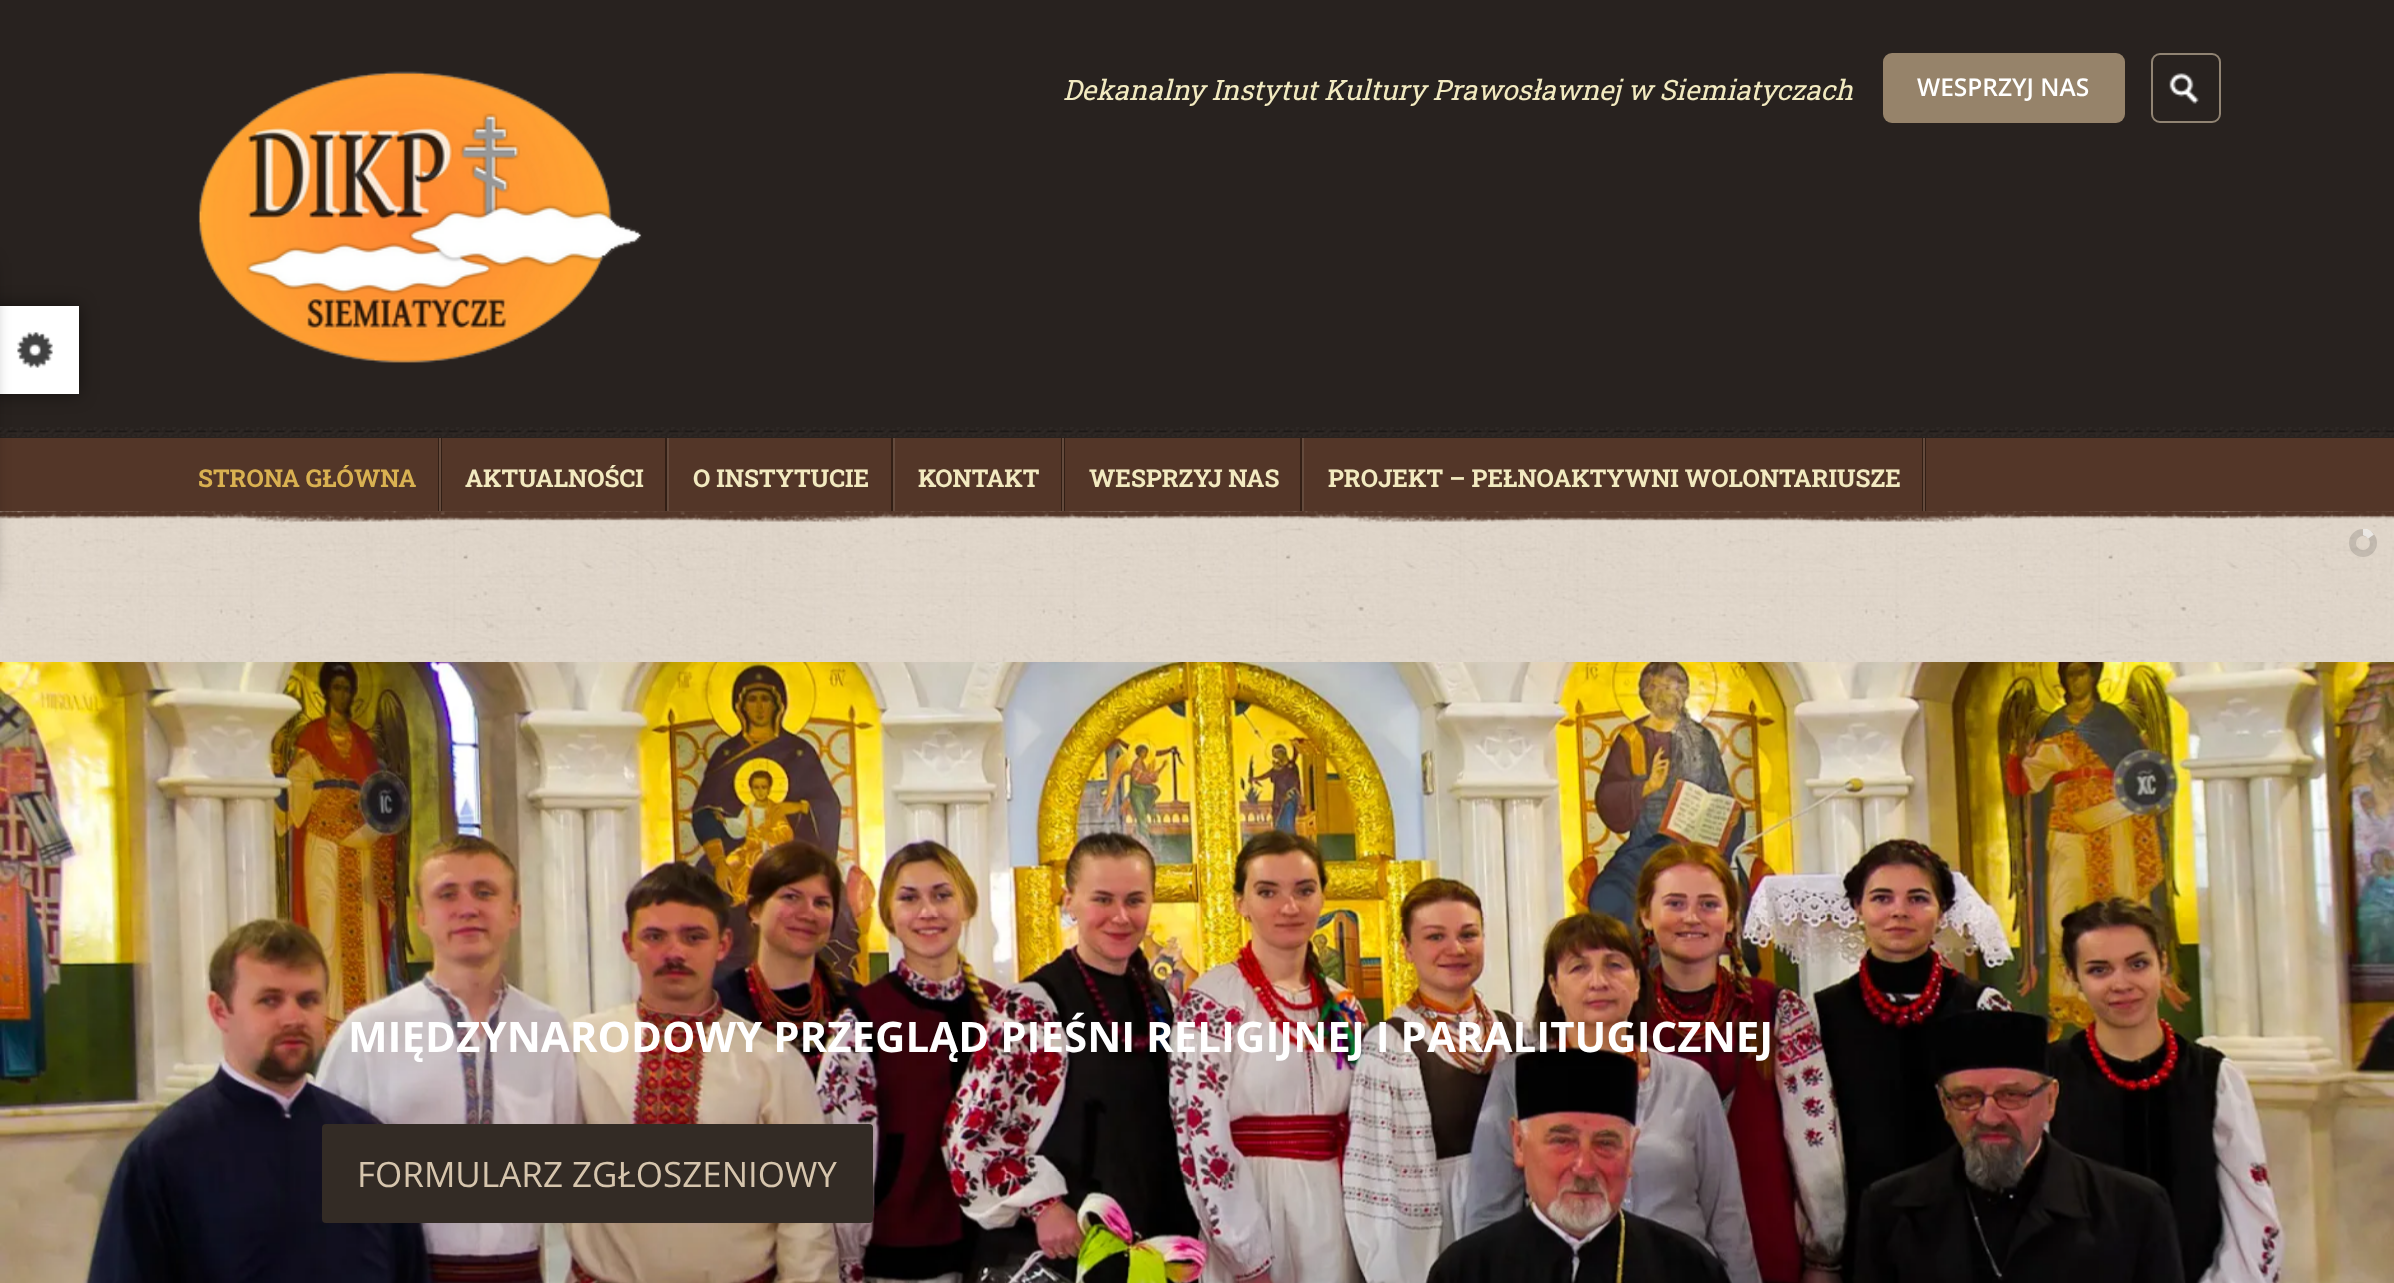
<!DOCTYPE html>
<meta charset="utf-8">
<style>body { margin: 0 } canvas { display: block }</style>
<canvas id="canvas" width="2394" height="1283"></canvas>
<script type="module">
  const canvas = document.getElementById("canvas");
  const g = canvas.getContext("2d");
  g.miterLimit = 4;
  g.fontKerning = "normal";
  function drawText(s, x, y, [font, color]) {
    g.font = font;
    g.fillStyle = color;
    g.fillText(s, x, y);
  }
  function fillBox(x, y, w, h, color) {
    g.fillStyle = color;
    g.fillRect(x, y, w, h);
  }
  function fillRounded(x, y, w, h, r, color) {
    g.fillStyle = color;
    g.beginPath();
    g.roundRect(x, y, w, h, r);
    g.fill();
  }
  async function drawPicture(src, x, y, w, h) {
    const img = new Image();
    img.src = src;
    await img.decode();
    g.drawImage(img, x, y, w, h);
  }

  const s1 = ["italic 28px Roboto Slab", "#F2EAC0"];
  const s2 = ["600 24.5px Open Sans", "#FFFFFF"];
  const s3 = ["bold 24.5px Roboto Slab", "#D9B151"];
  const s4 = ["bold 24.5px Roboto Slab", "#F2EAC0"];
  const s5 = ["bold 42px Open Sans", "#FFFFFF"];
  const s6 = ["35px Open Sans", "#D6C5AD"];

  fillBox(0, 0, 2394, 1283, "#FFFFFF");
  await drawPicture("pic1.png", 0, 511, 2394, 151);
  fillBox(0, 0, 2394, 438, "#28221F");
  g.fillStyle = "rgba(0, 0, 0, 0.5)";
  g.filter = "blur(9px)";
  g.beginPath();
  g.rect(-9, 306, 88, 88);
  g.fill();
  g.filter = "none";
  fillBox(0, 306, 79, 88, "#FFFFFF");
  await drawPicture("pic2.png", 17, 332, 36, 36);
  await drawPicture("pic3.png", 0, 427, 2394, 10);
  fillBox(0, 438, 2394, 73, "#533628");
  await drawPicture("pic6.png", 0, 511, 2394, 12);
  g.fillStyle = "rgba(0, 0, 0, 0.5)";
  g.filter = "blur(9px)";
  g.beginPath();
  g.rect(-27, 263, 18, 332);
  g.fill();
  g.filter = "none";
  await drawPicture("pic4.png", 198, 71, 444, 292);
  drawText("Dekanalny Instytut Kultury Prawosławnej w Siemiatyczach", 1063, 100, s1);
  fillRounded(1883, 53, 242, 70, 9, "#96836A");
  drawText("WESPRZYJ NAS", 1917, 96, s2);
  g.beginPath();
  g.roundRect(2152, 54, 68, 68, 8);
  g.strokeStyle = "#918473";
  g.lineWidth = 2;
  g.stroke();
  await drawPicture("pic5.png", 2169, 73, 30, 31);
  drawText("STRONA GŁÓWNA", 198, 487, s3);
  fillBox(438, 438, 4, 73, "#321F15");
  fillBox(439, 438, 2, 73, "#644B3D");
  drawText("AKTUALNOŚCI", 465, 487, s4);
  fillBox(665, 438, 2, 73, "#321F15");
  fillBox(667, 438, 2, 73, "#644B3D");
  drawText("O INSTYTUCIE", 693, 487, s4);
  fillBox(891, 438, 2, 73, "#321F15");
  fillBox(893, 438, 2, 73, "#644B3D");
  drawText("KONTAKT", 918, 487, s4);
  fillBox(1061, 438, 4, 73, "#321F15");
  fillBox(1062, 438, 2, 73, "#644B3D");
  drawText("WESPRZYJ NAS", 1089, 487, s4);
  fillBox(1300, 438, 2, 73, "#321F15");
  fillBox(1302, 438, 2, 73, "#644B3D");
  drawText("PROJEKT – PEŁNOAKTYWNI WOLONTARIUSZE", 1328, 487, s4);
  fillBox(1922, 438, 4, 73, "#321F15");
  fillBox(1923, 438, 2, 73, "#644B3D");
  g.beginPath();
  g.arc(2363, 543, 10.5, 0, Math.PI * 2);
  g.strokeStyle = "rgba(0, 0, 0, 0.13)";
  g.lineWidth = 7;
  g.stroke();
  g.save();
  g.beginPath();
  g.rect(2363, 529, 14, 28);
  g.clip();
  g.beginPath();
  g.moveTo(2366.5, 523);
  g.lineTo(2374, 534.5);
  g.lineTo(2351, 550.5);
  g.lineTo(2343, 538.5);
  g.closePath();
  g.clip();
  g.beginPath();
  g.moveTo(2371, 536.5);
  g.bezierCurveTo(2379, 548, 2361.5, 560, 2354, 548.5);
  g.bezierCurveTo(2346, 537, 2363.5, 525, 2371, 536.5);
  g.closePath();
  g.strokeStyle = "rgba(255, 255, 255, 0.65)";
  g.stroke();
  g.restore();
  await drawPicture("pic7.png", 0, 662, 2394, 621);
  drawText("MIĘDZYNARODOWY PRZEGLĄD PIEŚNI RELIGIJNEJ I PARALITUGICZNEJ", 348, 1052, s5);
  fillRounded(322, 1124, 551, 99, 4, "#332B25");
  drawText("FORMULARZ ZGŁOSZENIOWY", 357, 1187, s6);
</script>
